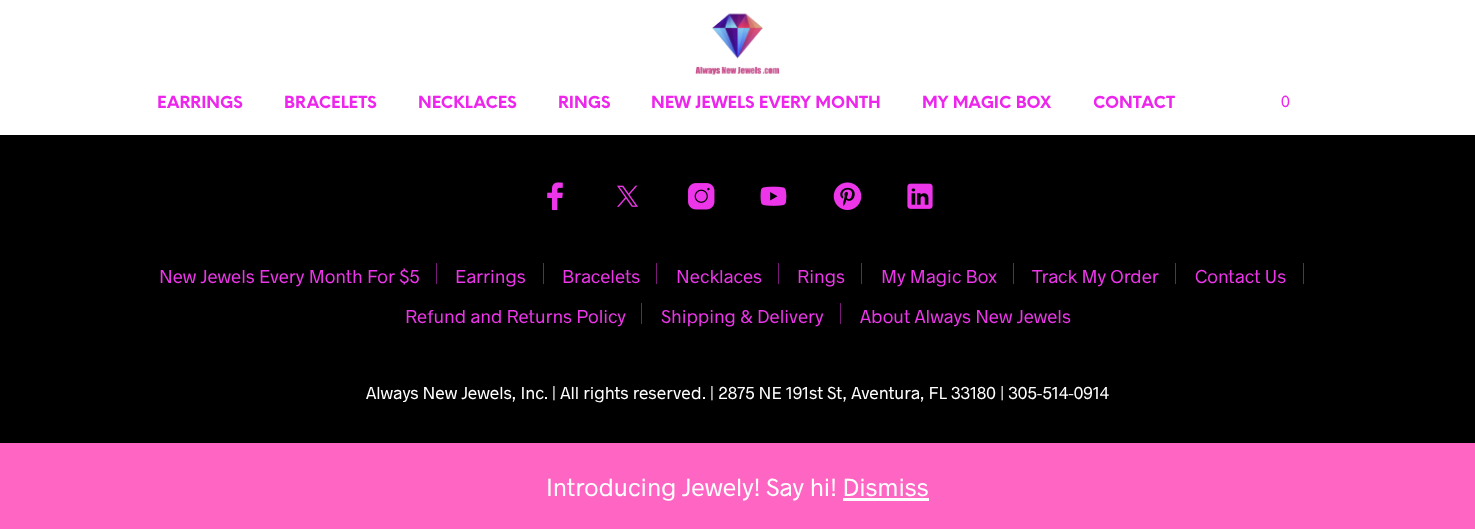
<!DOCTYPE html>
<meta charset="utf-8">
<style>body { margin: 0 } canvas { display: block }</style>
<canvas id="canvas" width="1475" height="529"></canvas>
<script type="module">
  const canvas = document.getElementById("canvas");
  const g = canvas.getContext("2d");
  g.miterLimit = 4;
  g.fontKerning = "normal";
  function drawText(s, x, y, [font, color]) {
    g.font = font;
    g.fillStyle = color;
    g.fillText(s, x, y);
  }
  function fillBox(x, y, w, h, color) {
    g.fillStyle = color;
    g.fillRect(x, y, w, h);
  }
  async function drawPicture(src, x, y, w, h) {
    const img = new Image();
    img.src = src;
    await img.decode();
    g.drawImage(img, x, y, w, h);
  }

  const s1 = ["bold 16.25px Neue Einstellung", "#ED25ED"];
  const s2 = ["16.25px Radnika", "#ED25ED"];
  const s3 = ["18.75px Radnika", "#ED36EA"];
  const s4 = ["17.5px Radnika", "#FFFFFF"];
  const s5 = ["25px Radnika", "#FFFFFF"];

  fillBox(0, 0, 1475, 529, "#000000");
  fillBox(0, 0, 1475, 135, "#FFFFFF");
  await drawPicture("pic1.png", 695, 13, 85, 62);
  drawText("EARRINGS", 157, 108, s1);
  drawText("BRACELETS", 284, 108, s1);
  drawText("NECKLACES", 418, 108, s1);
  drawText("RINGS", 558, 108, s1);
  drawText("NEW JEWELS EVERY MONTH", 651, 108, s1);
  drawText("MY MAGIC BOX", 922, 108, s1);
  drawText("CONTACT", 1093, 108, s1);
  drawText("0", 1281, 107, s2);
  await drawPicture("pic2.png", 547, 182, 16, 29);
  await drawPicture("pic3.png", 617, 185, 21, 22);
  await drawPicture("pic4.png", 688, 183, 27, 27);
  await drawPicture("pic5.png", 760, 186, 27, 20);
  await drawPicture("pic6.png", 833, 182, 29, 29);
  await drawPicture("pic7.png", 907, 183, 26, 26);
  drawText("New Jewels Every Month For $5", 159, 283, s3);
  fillBox(436, 263, 1, 21, "#771B75");
  drawText("Earrings", 455, 283, s3);
  fillBox(543, 263, 1, 21, "#771B75");
  drawText("Bracelets", 562, 283, s3);
  fillBox(656, 263, 1, 21, "#771B75");
  drawText("Necklaces", 676, 283, s3);
  fillBox(778, 263, 1, 21, "#771B75");
  drawText("Rings", 797, 283, s3);
  fillBox(861, 263, 1, 21, "#771B75");
  drawText("My Magic Box", 881, 283, s3);
  fillBox(1013, 263, 1, 21, "#771B75");
  drawText("Track My Order", 1032, 283, s3);
  fillBox(1175, 263, 1, 21, "#771B75");
  drawText("Contact Us", 1195, 283, s3);
  fillBox(1303, 263, 1, 21, "#771B75");
  drawText("Refund and Returns Policy", 405, 323, s3);
  fillBox(641, 303, 1, 21, "#771B75");
  drawText("Shipping & Delivery", 661, 323, s3);
  fillBox(840, 303, 1, 21, "#771B75");
  drawText("About Always New Jewels", 860, 323, s3);
  drawText("Always New Jewels, Inc. | All rights reserved. | 2875 NE 191st St, Aventura, FL 33180 | 305-514-0914", 366, 399, s4);
  fillBox(0, 443, 1475, 86, "#FF66C4");
  drawText("Introducing Jewely! Say hi! Dismiss", 546, 496, s5);
  fillBox(843, 498, 86, 3, "#FCFBFE");
</script>
